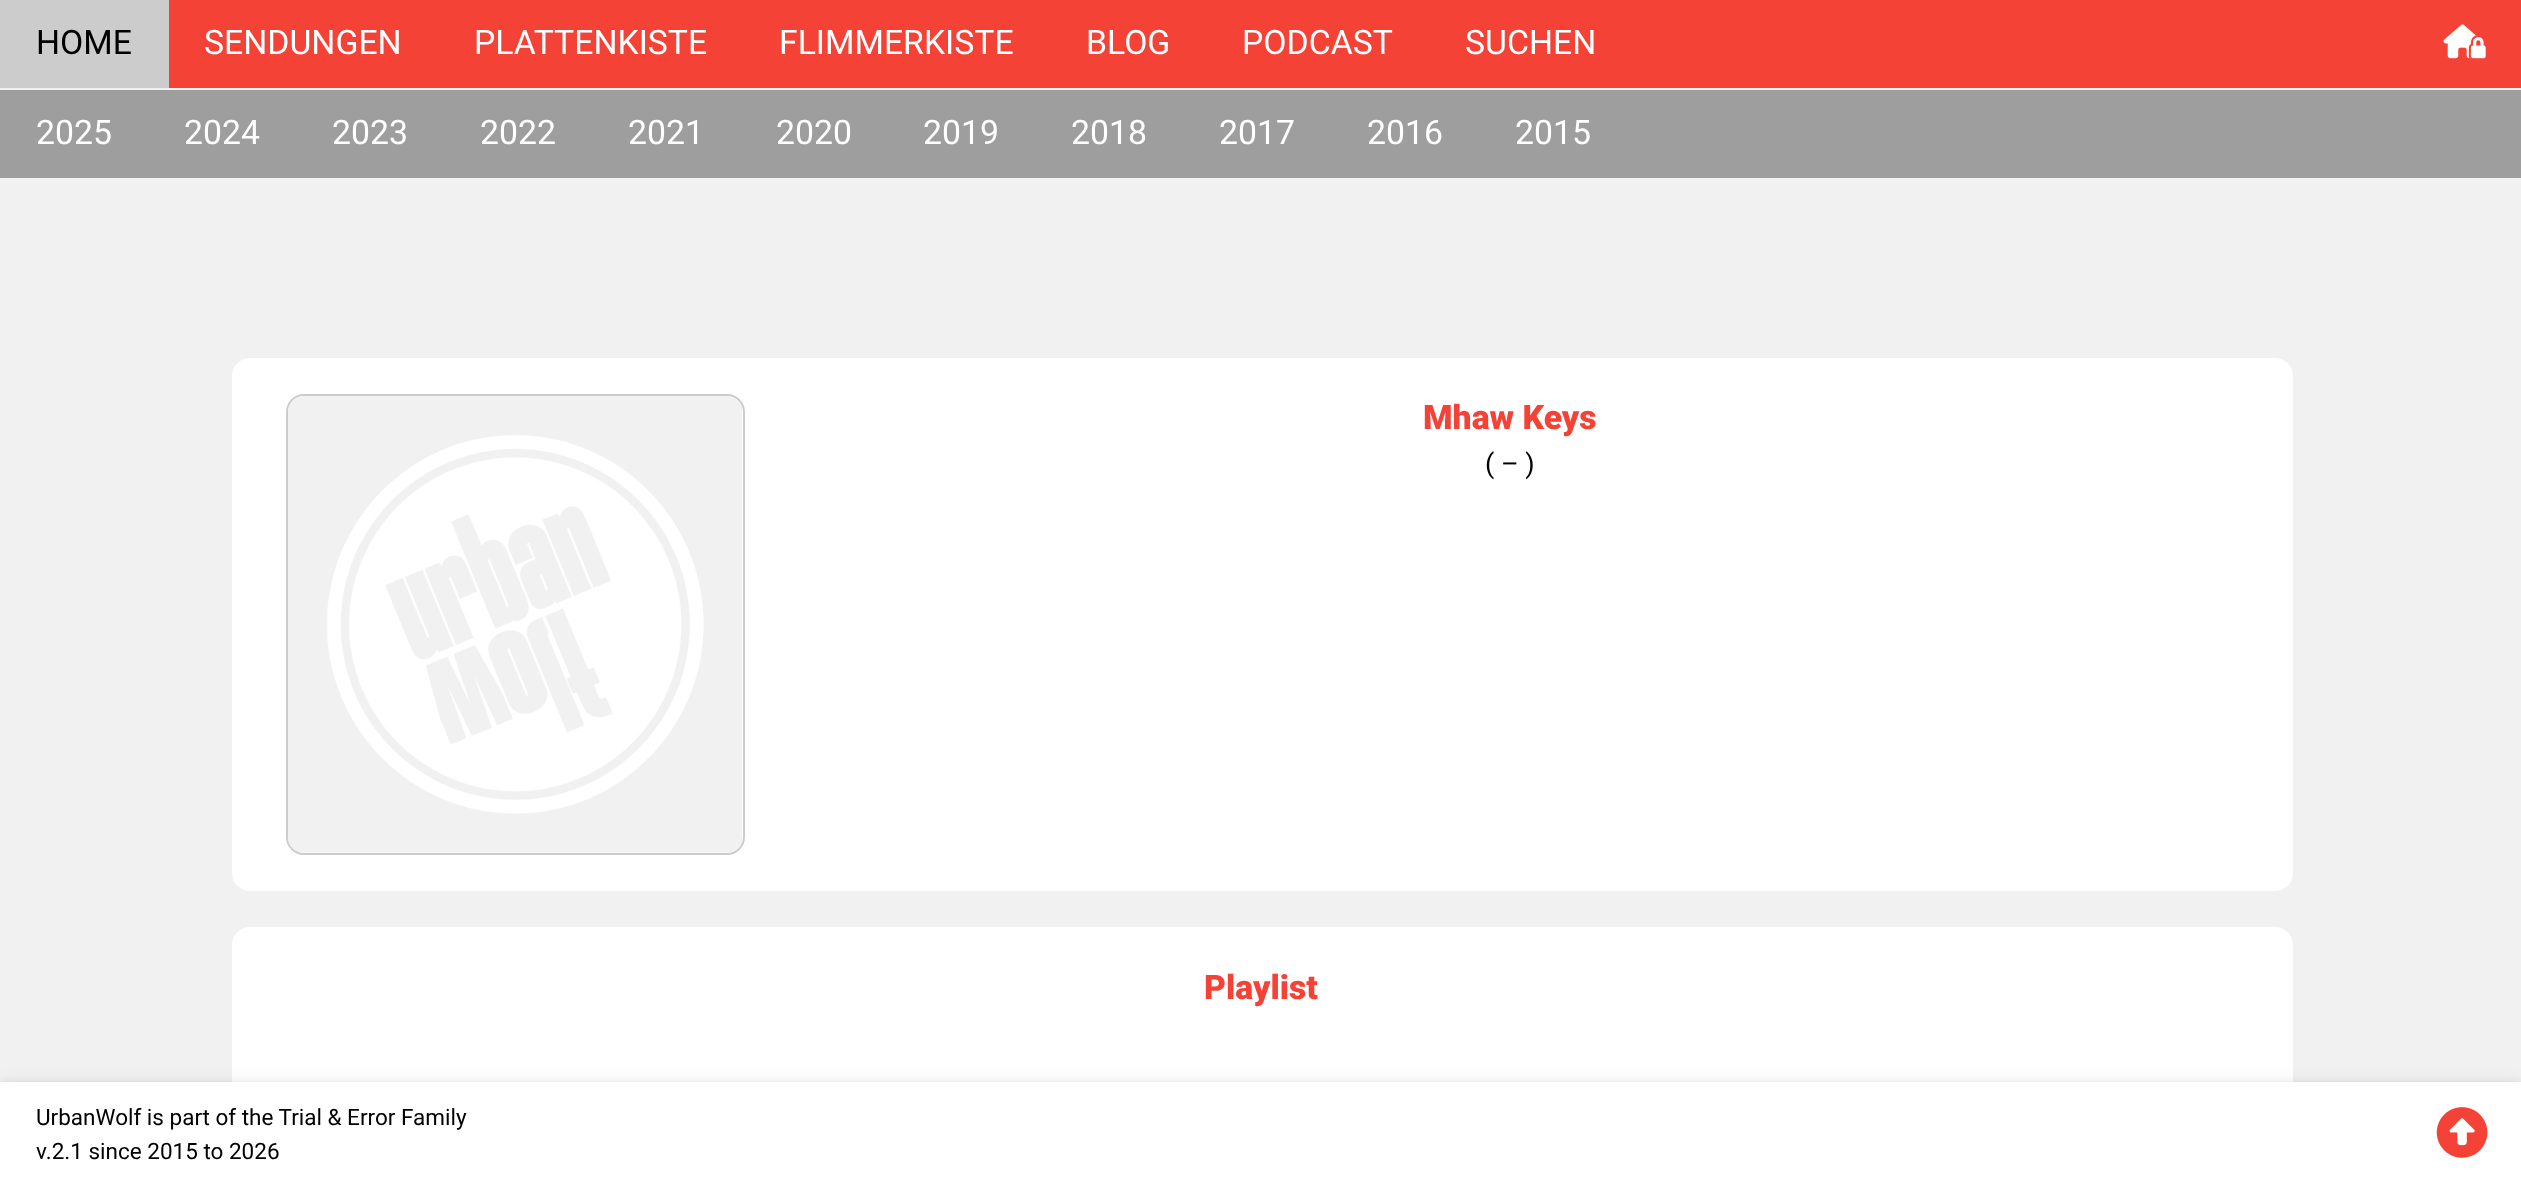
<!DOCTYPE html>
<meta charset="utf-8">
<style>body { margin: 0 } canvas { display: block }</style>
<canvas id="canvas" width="2521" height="1184"></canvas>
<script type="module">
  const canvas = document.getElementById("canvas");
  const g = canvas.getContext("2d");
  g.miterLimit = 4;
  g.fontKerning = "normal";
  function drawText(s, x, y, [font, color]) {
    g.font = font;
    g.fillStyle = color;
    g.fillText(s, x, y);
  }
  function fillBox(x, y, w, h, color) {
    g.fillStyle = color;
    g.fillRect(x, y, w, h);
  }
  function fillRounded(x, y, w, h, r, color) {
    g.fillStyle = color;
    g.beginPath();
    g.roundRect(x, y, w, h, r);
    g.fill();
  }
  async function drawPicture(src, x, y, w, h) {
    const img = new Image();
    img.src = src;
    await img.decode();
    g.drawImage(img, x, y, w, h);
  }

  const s1 = ["33.75px Roboto", "#000000"];
  const s2 = ["33.75px Roboto", "#FFFFFF"];
  const s3 = ["900 33.75px Roboto", "#F44336"];
  const s4 = ["27px Roboto", "#000000"];
  const s5 = ["22.5px Roboto", "#000000"];

  fillBox(0, 0, 2521, 1184, "#F1F1F1");
  fillBox(169, 0, 2352, 88, "#F44336");
  fillBox(0, 0, 169, 88, "#CCCCCC");
  drawText("HOME", 36, 54, s1);
  drawText("SENDUNGEN", 204, 54, s2);
  drawText("PLATTENKISTE", 474, 54, s2);
  drawText("FLIMMERKISTE", 779, 54, s2);
  drawText("BLOG", 1086, 54, s2);
  drawText("PODCAST", 1242, 54, s2);
  drawText("SUCHEN", 1465, 54, s2);
  await drawPicture("pic1.png", 2443, 24, 43, 35);
  fillBox(0, 90, 2521, 88, "#9E9E9E");
  drawText("2025", 36, 144, s2);
  drawText("2024", 184, 144, s2);
  drawText("2023", 332, 144, s2);
  drawText("2022", 480, 144, s2);
  drawText("2021", 628, 144, s2);
  drawText("2020", 776, 144, s2);
  drawText("2019", 923, 144, s2);
  drawText("2018", 1071, 144, s2);
  drawText("2017", 1219, 144, s2);
  drawText("2016", 1367, 144, s2);
  drawText("2015", 1515, 144, s2);
  fillRounded(232, 358, 2061, 533, 18, "#FFFFFF");
  g.beginPath();
  g.roundRect(287, 395, 457, 459, 17);
  g.strokeStyle = "#CCCCCC";
  g.lineWidth = 2;
  g.stroke();
  await drawPicture("pic2.png", 288, 396, 454, 457);
  drawText("Mhaw Keys", 1423, 429, s3);
  drawText("( – )", 1485, 473, s4);
  fillRounded(232, 927, 2061, 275, 18, "#FFFFFF");
  drawText("Playlist", 1204, 999, s3);
  g.fillStyle = "rgba(0, 0, 0, 0.12)";
  g.filter = "blur(11px)";
  g.beginPath();
  g.rect(0, 1087, 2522, 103);
  g.fill();
  g.filter = "none";
  g.fillStyle = "rgba(0, 0, 0, 0.16)";
  g.filter = "blur(5.5px)";
  g.beginPath();
  g.rect(0, 1087, 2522, 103);
  g.fill();
  g.filter = "none";
  fillBox(0, 1082, 2521, 102, "#FFFFFF");
  drawText("UrbanWolf is part of the Trial & Error Family", 36, 1125, s5);
  drawText("v.2.1 since 2015 to 2026", 36, 1159, s5);
  await drawPicture("pic3.png", 2436, 1107, 52, 51);
</script>
